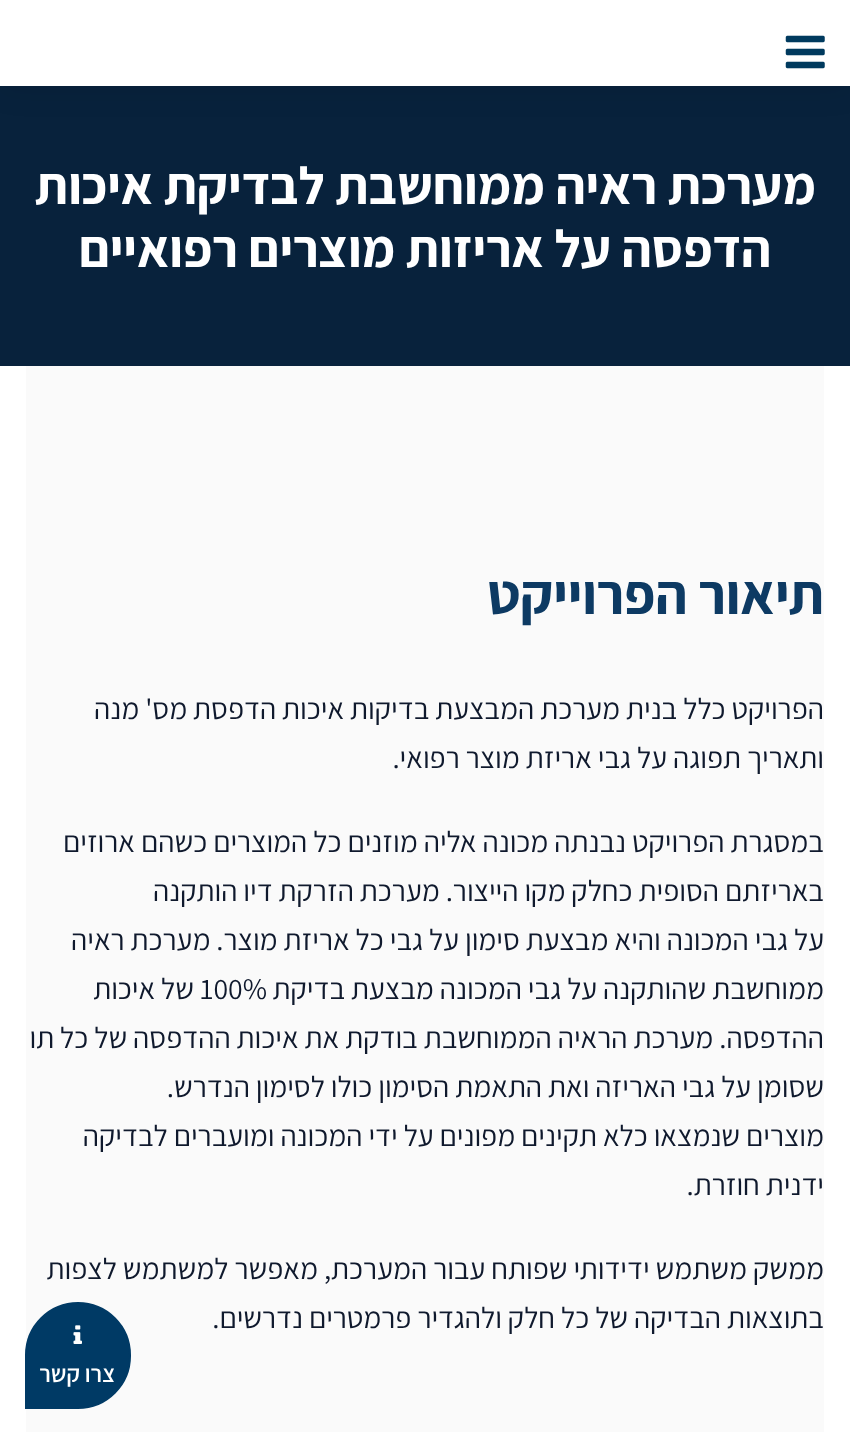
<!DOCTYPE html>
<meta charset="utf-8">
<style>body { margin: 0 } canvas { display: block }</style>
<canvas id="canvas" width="850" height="1432"></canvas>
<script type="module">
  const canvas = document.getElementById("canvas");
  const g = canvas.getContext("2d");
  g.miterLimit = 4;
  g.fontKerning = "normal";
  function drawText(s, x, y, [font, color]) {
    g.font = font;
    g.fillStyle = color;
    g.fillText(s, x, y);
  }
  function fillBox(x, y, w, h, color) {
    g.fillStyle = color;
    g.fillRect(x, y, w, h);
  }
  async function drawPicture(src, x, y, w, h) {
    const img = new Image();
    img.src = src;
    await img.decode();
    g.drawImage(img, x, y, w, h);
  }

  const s1 = ["bold 52.5px Assistant", "#FFFFFF"];
  const s2 = ["bold 56px Assistant", "#0D3A63"];
  const s3 = ["29.75px Assistant", "#0F192D"];
  const s4 = ["600 24px Assistant", "#FFFFFF"];

  fillBox(0, 0, 850, 1432, "#FFFFFF");
  fillBox(0, 86, 850, 280, "#08223C");
  g.fillStyle = "rgba(0, 0, 0, 0.1)";
  g.filter = "blur(16px)";
  g.beginPath();
  g.rect(0, 0, 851, 86);
  g.fill();
  g.filter = "none";
  fillBox(0, 0, 850, 86, "#FFFFFF");
  await drawPicture("pic1.png", 785, 35, 40, 34);
  g.direction = "rtl";
  drawText("מערכת ראיה ממוחשבת לבדיקת איכות", 816, 204, s1);
  drawText("הדפסה על אריזות מוצרים רפואיים", 771, 267, s1);
  fillBox(26, 366, 798, 1066, "#FAFAFA");
  drawText("תיאור הפרוייקט", 824, 614, s2);
  drawText("הפרויקט כלל בנית מערכת המבצעת בדיקות איכות הדפסת מס' מנה", 824, 719, s3);
  drawText("ותאריך תפוגה על גבי אריזת מוצר רפואי.", 824, 768, s3);
  drawText("במסגרת הפרויקט נבנתה מכונה אליה מוזנים כל המוצרים כשהם ארוזים", 824, 852, s3);
  drawText("באריזתם הסופית כחלק מקו הייצור. מערכת הזרקת דיו הותקנה", 824, 901, s3);
  drawText("על גבי המכונה והיא מבצעת סימון על גבי כל אריזת מוצר. מערכת ראיה", 824, 950, s3);
  drawText("ממוחשבת שהותקנה על גבי המכונה מבצעת בדיקת", 824, 999, s3);
  g.direction = "ltr";
  drawText("100%", 200, 999, s3);
  g.direction = "rtl";
  drawText("של איכות", 194, 999, s3);
  drawText("ההדפסה. מערכת הראיה הממוחשבת בודקת את איכות ההדפסה של כל תו", 824, 1048, s3);
  drawText("שסומן על גבי האריזה ואת התאמת הסימון כולו לסימון הנדרש.", 824, 1097, s3);
  drawText("מוצרים שנמצאו כלא תקינים מפונים על ידי המכונה ומועברים לבדיקה", 824, 1146, s3);
  drawText("ידנית חוזרת.", 824, 1195, s3);
  drawText("ממשק משתמש ידידותי שפותח עבור המערכת, מאפשר למשתמש לצפות", 824, 1279, s3);
  drawText("בתוצאות הבדיקה של כל חלק ולהגדיר פרמטרים נדרשים.", 824, 1328, s3);
  g.fillStyle = "#003A65";
  g.beginPath();
  g.roundRect(26, 1303, 104, 105, [52, 52, 52, 0]);
  g.fill();
  g.strokeStyle = "#003A65";
  g.lineWidth = 2;
  g.stroke();
  await drawPicture("pic2.png", 73, 1325, 9, 19);
  drawText("צרו קשר", 115, 1382, s4);
</script>
